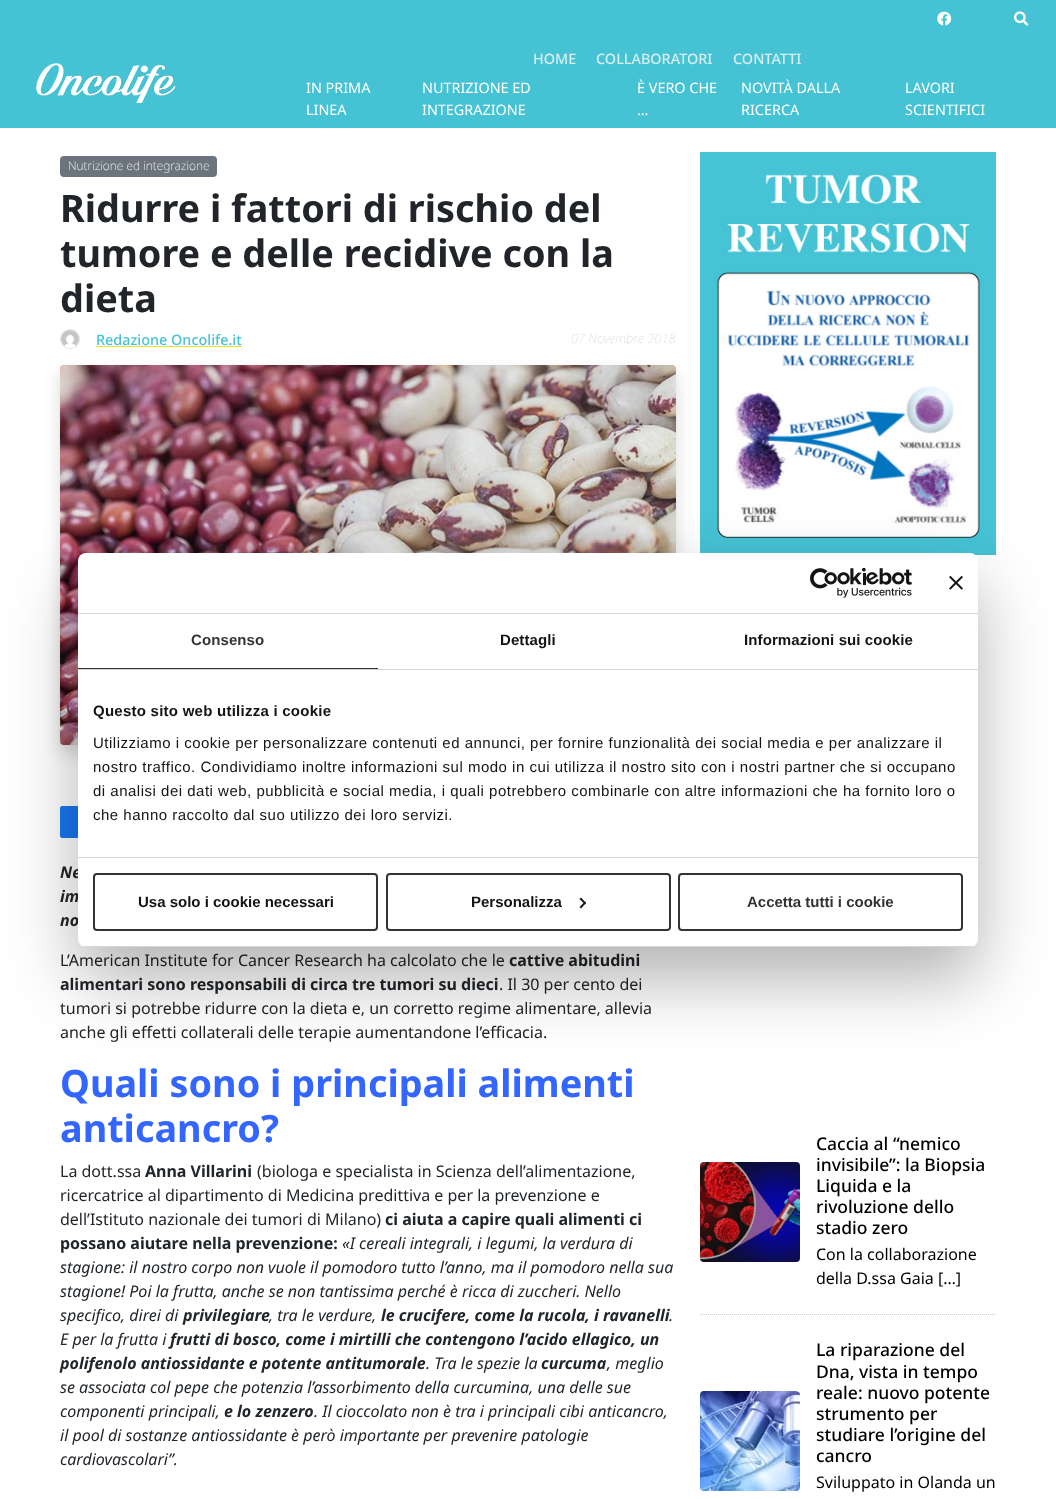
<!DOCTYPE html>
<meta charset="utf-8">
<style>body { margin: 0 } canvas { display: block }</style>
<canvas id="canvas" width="1056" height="1499"></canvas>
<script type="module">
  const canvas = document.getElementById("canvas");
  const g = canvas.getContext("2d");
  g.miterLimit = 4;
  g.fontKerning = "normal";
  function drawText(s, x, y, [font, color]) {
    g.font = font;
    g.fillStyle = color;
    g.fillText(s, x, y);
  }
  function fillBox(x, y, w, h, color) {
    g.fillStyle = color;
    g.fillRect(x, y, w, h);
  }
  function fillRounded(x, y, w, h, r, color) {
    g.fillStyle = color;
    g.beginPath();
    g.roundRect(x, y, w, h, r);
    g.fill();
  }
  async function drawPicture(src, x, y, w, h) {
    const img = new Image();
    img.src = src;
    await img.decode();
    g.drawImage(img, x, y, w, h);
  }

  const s1 = ["500 14.4px Noto Sans", "#D8EEF0"];
  const s2 = ["14.4px Noto Sans", "#FFFFFF"];
  const s3 = ["200 12px Noto Sans", "#FFFFFF"];
  const s4 = ["bold 37.8px Noto Sans", "#212529"];
  const s5 = ["500 14.4px Noto Sans", "#45C3D4"];
  const s6 = ["italic 100 12.75px Noto Sans", "#CCCCCC"];
  const s7 = ["italic bold 16px Noto Sans", "#212529"];
  const s8 = ["16px Noto Sans", "#212529"];
  const s9 = ["bold 16px Noto Sans", "#212529"];
  const s10 = ["bold 37.8px Noto Sans", "#3366FF"];
  const s11 = ["italic 16px Noto Sans", "#212529"];
  const s12 = ["500 17.5px Noto Sans", "#000000"];
  const s13 = ["16px Noto Sans", "#000000"];
  const s14 = ["bold 15px Liberation Sans", "#333333"];
  const s15 = ["bold 15px Liberation Sans", "#141414"];
  const s16 = ["15px Liberation Sans", "#141414"];

  fillBox(0, 0, 1056, 1499, "#FFFFFF");
  fillBox(0, 0, 1056, 128, "#45C3D4");
  await drawPicture("pic1.png", 937, 11, 15, 15);
  await drawPicture("pic2.png", 1014, 11, 15, 15);
  await drawPicture("pic3.png", 36, 63, 140, 40);
  drawText("HOME", 533, 64, s1);
  drawText("COLLABORATORI", 596, 64, s1);
  drawText("CONTATTI", 733, 64, s1);
  drawText("IN PRIMA", 306, 93, s2);
  drawText("LINEA", 306, 115, s2);
  drawText("NUTRIZIONE ED", 422, 93, s2);
  drawText("INTEGRAZIONE", 422, 115, s2);
  drawText("È VERO CHE", 637, 93, s2);
  drawText("…", 637, 115, s2);
  drawText("NOVITÀ DALLA", 741, 93, s2);
  drawText("RICERCA", 741, 115, s2);
  drawText("LAVORI", 905, 93, s2);
  drawText("SCIENTIFICI", 905, 115, s2);
  fillRounded(60, 156, 157, 21, 4, "#6C757D");
  drawText("Nutrizione ed integrazione", 68, 170, s3);
  drawText("Ridurre i fattori di rischio del", 60, 222, s4);
  drawText("tumore e delle recidive con la", 60, 267, s4);
  drawText("dieta", 60, 312, s4);
  g.beginPath();
  g.arc(70, 339, 9.5, 0, Math.PI * 2);
  g.strokeStyle = "#DEE2E6";
  g.stroke();
  await drawPicture("pic4.png", 61, 330, 18, 18);
  drawText("Redazione Oncolife.it", 96, 345, s5);
  fillBox(96, 346, 146, 1, "#EDDF21");
  drawText("07 Novembre 2018", 571, 343, s6);
  g.fillStyle = "rgba(0, 0, 0, 0.15)";
  g.filter = "blur(8px)";
  g.beginPath();
  g.roundRect(60, 373, 616, 380, 4);
  g.fill();
  g.filter = "none";
  await drawPicture("pic5.png", 60, 365, 616, 380);
  g.fillStyle = "#1877F2";
  g.beginPath();
  g.roundRect(60.5, 806.5, 198, 31, 1.5);
  g.fill();
  g.strokeStyle = "#1877F2";
  g.stroke();
  drawText("Ne", 60, 878, s7);
  drawText("im", 60, 902, s7);
  drawText("no", 60, 926, s7);
  drawText("L’American Institute for Cancer Research ha calcolato che le", 60, 966, s8);
  drawText("cattive abitudini", 509, 966, s9);
  drawText("alimentari sono responsabili di circa tre tumori su dieci", 60, 990, s9);
  drawText(". Il 30 per cento dei", 499, 990, s8);
  drawText("tumori si potrebbe ridurre con la dieta e, un corretto regime alimentare, allevia", 60, 1014, s8);
  drawText("anche gli effetti collaterali delle terapie aumentandone l’efficacia.", 60, 1038, s8);
  drawText("Quali sono i principali alimenti", 60, 1097, s10);
  drawText("anticancro?", 60, 1142, s10);
  drawText("La dott.ssa", 60, 1177, s8);
  drawText("Anna Villarini", 145, 1177, s9);
  drawText("(biologa e specialista in Scienza dell’alimentazione,", 257, 1177, s8);
  drawText("ricercatrice al dipartimento di Medicina predittiva e per la prevenzione e", 60, 1201, s8);
  drawText("dell’Istituto nazionale dei tumori di Milano)", 60, 1225, s8);
  drawText("ci aiuta a capire quali alimenti ci", 385, 1225, s9);
  drawText("possano aiutare nella prevenzione:", 60, 1249, s9);
  drawText("«I cereali integrali, i legumi, la verdura di", 342, 1249, s11);
  drawText("stagione: il nostro corpo non vuole il pomodoro tutto l’anno, ma il pomodoro nella sua", 60, 1273, s11);
  drawText("stagione! Poi la frutta, anche se non tantissima perché è ricca di zuccheri. Nello", 60, 1297, s11);
  drawText("specifico, direi di", 60, 1321, s11);
  drawText("privilegiare", 183, 1321, s7);
  drawText(", tra le verdure,", 269, 1321, s11);
  drawText("le crucifere, come la rucola, i ravanelli", 381, 1321, s7);
  drawText(".", 669, 1321, s11);
  drawText("E per la frutta i", 60, 1345, s11);
  drawText("frutti di bosco, come i mirtilli che contengono l’acido ellagico, un", 170, 1345, s7);
  drawText("polifenolo antiossidante e potente antitumorale", 60, 1369, s7);
  drawText(". Tra le spezie la", 426, 1369, s11);
  drawText("curcuma", 541, 1369, s7);
  drawText(", meglio", 607, 1369, s11);
  drawText("se associata col pepe che potenzia l’assorbimento della curcumina, una delle sue", 60, 1393, s11);
  drawText("componenti principali,", 60, 1417, s11);
  drawText("e lo zenzero", 224, 1417, s7);
  drawText(". Il cioccolato non è tra i principali cibi anticancro,", 314, 1417, s11);
  drawText("il pool di sostanze antiossidante è però importante per prevenire patologie", 60, 1441, s11);
  drawText("cardiovascolari”.", 60, 1465, s11);
  await drawPicture("pic6.png", 700, 152, 296, 461);
  g.beginPath();
  g.moveTo(700, 1314.5);
  g.lineTo(996, 1314.5);
  g.strokeStyle = "#CCCCCC";
  g.setLineDash([1, 1]);
  g.stroke();
  await drawPicture("pic7.png", 700, 1162, 100, 100);
  drawText("Caccia al “nemico", 816, 1150, s12);
  drawText("invisibile”: la Biopsia", 816, 1171, s12);
  drawText("Liquida e la", 816, 1192, s12);
  drawText("rivoluzione dello", 816, 1213, s12);
  drawText("stadio zero", 816, 1234, s12);
  drawText("Con la collaborazione", 816, 1260, s13);
  drawText("della D.ssa Gaia […]", 816, 1284, s13);
  await drawPicture("pic8.png", 700, 1391, 100, 100);
  drawText("La riparazione del", 816, 1356, s12);
  drawText("Dna, vista in tempo", 816, 1378, s12);
  drawText("reale: nuovo potente", 816, 1399, s12);
  drawText("strumento per", 816, 1420, s12);
  drawText("studiare l’origine del", 816, 1441, s12);
  drawText("cancro", 816, 1462, s12);
  drawText("Sviluppato in Olanda un", 816, 1488, s13);
  g.fillStyle = "rgba(0, 0, 0, 0.3)";
  g.filter = "blur(34px)";
  g.beginPath();
  g.roundRect(78, 585, 900, 394, 8);
  g.fill();
  g.filter = "none";
  fillRounded(78, 553, 900, 394, 8, "#FFFFFF");
  fillBox(78, 613, 900, 1, "#D6D6D6");
  await drawPicture("pic9.png", 810, 568, 102, 30);
  await drawPicture("pic10.png", 949, 576, 14, 14);
  fillBox(78, 669, 900, 1, "#D6D6D6");
  fillBox(78, 668, 300, 1, "#333333");
  g.letterSpacing = "0.1px";
  drawText("Consenso", 191, 645, s14);
  drawText("Dettagli", 500, 645, s15);
  drawText("Informazioni sui cookie", 744, 645, s15);
  fillBox(78, 857, 900, 1, "#D6D6D6");
  g.letterSpacing = "0.25px";
  drawText("Questo sito web utilizza i cookie", 93, 716, s15);
  g.letterSpacing = "0.5px";
  drawText("Utilizziamo i cookie per personalizzare contenuti ed annunci, per fornire funzionalità dei social media e per analizzare il", 93, 748, s16);
  drawText("nostro traffico. Condividiamo inoltre informazioni sul modo in cui utilizza il nostro sito con i nostri partner che si occupano", 93, 772, s16);
  drawText("di analisi dei dati web, pubblicità e social media, i quali potrebbero combinarle con altre informazioni che ha fornito loro o", 93, 796, s16);
  drawText("che hanno raccolto dal suo utilizzo dei loro servizi.", 93, 820, s16);
  g.save();
  g.beginPath();
  g.roundRect(78, 553, 900, 394, 8);
  g.clip();
  fillBox(78, 946, 900, 1, "#D6D6D6");
  g.restore();
  g.beginPath();
  g.roundRect(94, 874, 283, 56, 3);
  g.strokeStyle = "#333333";
  g.lineWidth = 2;
  g.setLineDash([]);
  g.stroke();
  g.letterSpacing = "0px";
  drawText("Usa solo i cookie necessari", 138, 907, s15);
  g.beginPath();
  g.roundRect(387, 874, 283, 56, 3);
  g.stroke();
  drawText("Personalizza", 471, 907, s15);
  g.beginPath();
  g.moveTo(581, 897.5);
  g.lineTo(586, 903);
  g.lineTo(585, 904.5);
  g.lineTo(579.5, 899);
  g.closePath();
  g.fill();
  g.beginPath();
  g.moveTo(585, 901.5);
  g.lineTo(586, 903);
  g.lineTo(581, 908.5);
  g.lineTo(579.5, 907);
  g.closePath();
  g.fill();
  g.beginPath();
  g.roundRect(679, 874, 283, 56, 3);
  g.stroke();
  drawText("Accetta tutti i cookie", 747, 907, s14);
</script>
